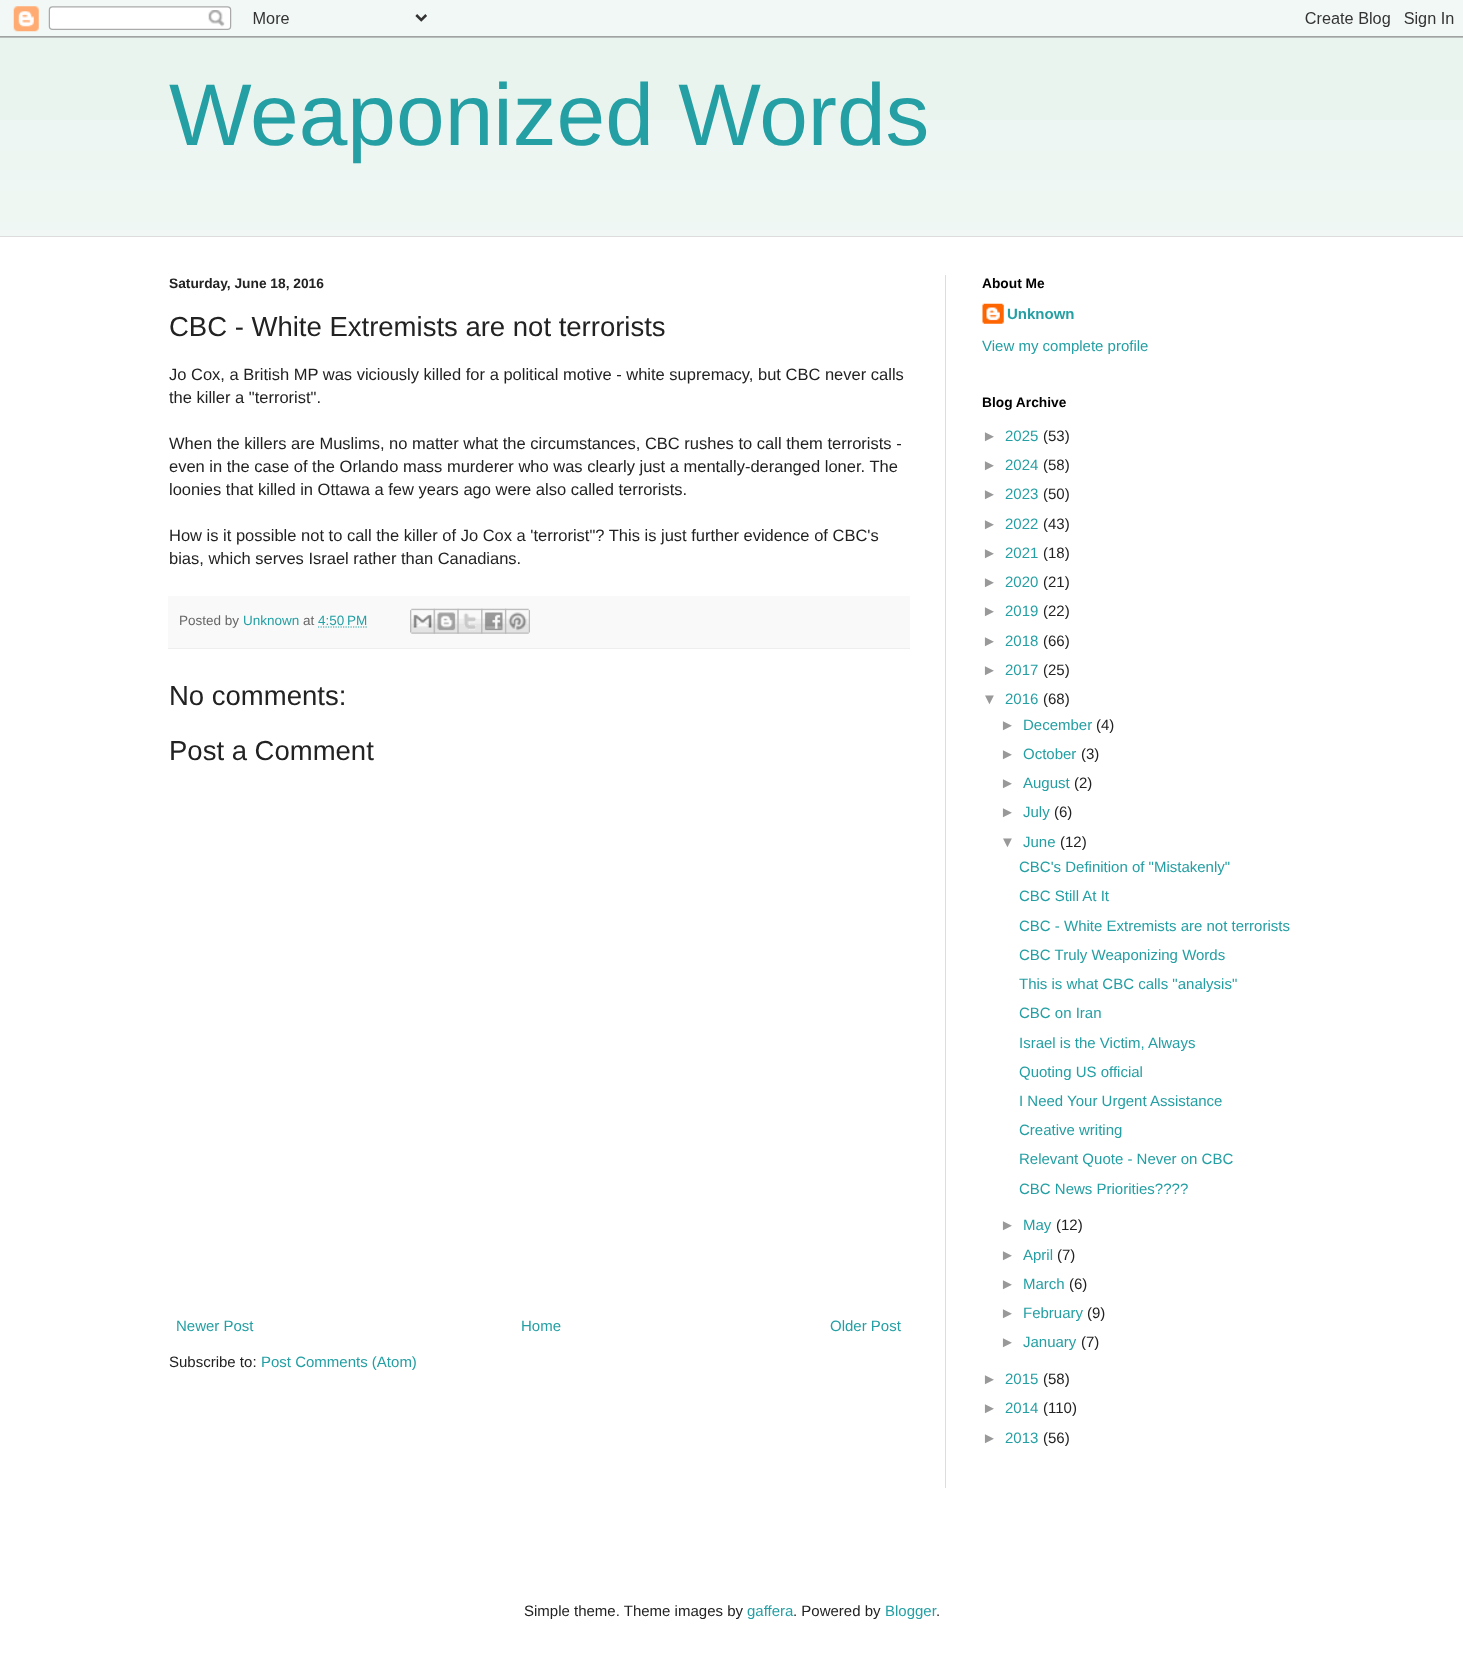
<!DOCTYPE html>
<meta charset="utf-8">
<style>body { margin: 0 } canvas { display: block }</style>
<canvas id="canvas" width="1463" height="1654"></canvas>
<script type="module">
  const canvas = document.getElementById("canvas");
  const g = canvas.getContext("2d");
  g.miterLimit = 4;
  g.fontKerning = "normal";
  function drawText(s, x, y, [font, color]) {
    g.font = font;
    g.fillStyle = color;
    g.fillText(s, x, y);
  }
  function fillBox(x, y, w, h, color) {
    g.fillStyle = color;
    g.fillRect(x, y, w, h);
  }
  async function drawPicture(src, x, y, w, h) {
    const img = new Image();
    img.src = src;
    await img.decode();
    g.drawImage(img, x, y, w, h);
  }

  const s1 = ["87.5px Liberation Sans", "#249FA3"];
  const s2 = ["bold 13.75px Liberation Sans", "#222222"];
  const s3 = ["27.5px Liberation Sans", "#222222"];
  const s4 = ["16.5px Liberation Sans", "#222222"];
  const s5 = ["13.5px Liberation Sans", "#666666"];
  const s6 = ["13.5px Liberation Sans", "#249FA3"];
  const s7 = ["15px Liberation Sans", "#249FA3"];
  const s8 = ["15px Liberation Sans", "#222222"];
  const s9 = ["bold 13.75px Liberation Sans", "#000000"];
  const s10 = ["bold 15px Liberation Sans", "#249FA3"];
  const s11 = ["15px Liberation Sans", "#999999"];

  fillBox(0, 0, 1463, 1654, "#E9F4EF");
  await drawPicture("pic1.png", 0, 0, 1463, 38);
  await drawPicture("pic8.png", 0, 120, 1463, 116);
  drawText("Weaponized Words", 169, 145, s1);
  fillBox(0, 237, 1463, 1417, "#FFFFFF");
  fillBox(0, 236, 1463, 1, "#DDDDDD");
  fillBox(945, 275, 1, 1213, "#DDDDDD");
  drawText("Saturday, June 18, 2016", 169, 288, s2);
  drawText("CBC - White Extremists are not terrorists", 169, 336, s3);
  drawText("Jo Cox, a British MP was viciously killed for a political motive - white supremacy, but CBC never calls", 169, 380, s4);
  drawText("the killer a \"terrorist\".", 169, 403, s4);
  drawText("When the killers are Muslims, no matter what the circumstances, CBC rushes to call them terrorists -", 169, 449, s4);
  drawText("even in the case of the Orlando mass murderer who was clearly just a mentally-deranged loner. The", 169, 472, s4);
  drawText("loonies that killed in Ottawa a few years ago were also called terrorists.", 169, 495, s4);
  drawText("How is it possible not to call the killer of Jo Cox a 'terrorist\"? This is just further evidence of CBC's", 169, 541, s4);
  drawText("bias, which serves Israel rather than Canadians.", 169, 564, s4);
  fillBox(168, 596, 742, 52, "#F9F9F9");
  fillBox(168, 648, 742, 1, "#EEEEEE");
  drawText("Posted by", 179, 625, s5);
  drawText("Unknown", 243, 625, s6);
  drawText("at", 303, 625, s5);
  drawText("4:50 PM", 318, 625, s6);
  g.beginPath();
  g.moveTo(318, 627);
  g.lineTo(367.5, 627);
  g.strokeStyle = "#249FA3";
  g.lineWidth = 1.2;
  g.setLineDash([1.25, 1.25]);
  g.stroke();
  await drawPicture("pic2.png", 410, 608, 25, 26);
  await drawPicture("pic3.png", 433, 608, 26, 26);
  await drawPicture("pic4.png", 457, 608, 26, 26);
  await drawPicture("pic5.png", 481, 608, 26, 26);
  await drawPicture("pic6.png", 505, 608, 25, 26);
  drawText("No comments:", 169, 705, s3);
  drawText("Post a Comment", 169, 760, s3);
  drawText("Newer Post", 176, 1331, s7);
  drawText("Home", 521, 1331, s7);
  drawText("Older Post", 830, 1331, s7);
  drawText("Subscribe to:", 169, 1367, s8);
  drawText("Post Comments (Atom)", 261, 1367, s7);
  drawText("About Me", 982, 288, s9);
  await drawPicture("pic7.png", 982, 303, 22, 21);
  drawText("Unknown", 1007, 319, s10);
  drawText("View my complete profile", 982, 351, s7);
  drawText("Blog Archive", 982, 407, s9);
  drawText("►", 982, 441, s11);
  drawText("2025", 1005, 441, s7);
  drawText("(53)", 1043, 441, s8);
  drawText("►", 982, 470, s11);
  drawText("2024", 1005, 470, s7);
  drawText("(58)", 1043, 470, s8);
  drawText("►", 982, 499, s11);
  drawText("2023", 1005, 499, s7);
  drawText("(50)", 1043, 499, s8);
  drawText("►", 982, 529, s11);
  drawText("2022", 1005, 529, s7);
  drawText("(43)", 1043, 529, s8);
  drawText("►", 982, 558, s11);
  drawText("2021", 1005, 558, s7);
  drawText("(18)", 1043, 558, s8);
  drawText("►", 982, 587, s11);
  drawText("2020", 1005, 587, s7);
  drawText("(21)", 1043, 587, s8);
  drawText("►", 982, 616, s11);
  drawText("2019", 1005, 616, s7);
  drawText("(22)", 1043, 616, s8);
  drawText("►", 982, 646, s11);
  drawText("2018", 1005, 646, s7);
  drawText("(66)", 1043, 646, s8);
  drawText("►", 982, 675, s11);
  drawText("2017", 1005, 675, s7);
  drawText("(25)", 1043, 675, s8);
  drawText("▼", 982, 704, s11);
  drawText("2016", 1005, 704, s7);
  drawText("(68)", 1043, 704, s8);
  drawText("►", 1000, 730, s11);
  drawText("December", 1023, 730, s7);
  drawText("(4)", 1096, 730, s8);
  drawText("►", 1000, 759, s11);
  drawText("October", 1023, 759, s7);
  drawText("(3)", 1081, 759, s8);
  drawText("►", 1000, 788, s11);
  drawText("August", 1023, 788, s7);
  drawText("(2)", 1074, 788, s8);
  drawText("►", 1000, 817, s11);
  drawText("July", 1023, 817, s7);
  drawText("(6)", 1054, 817, s8);
  drawText("▼", 1000, 847, s11);
  drawText("June", 1023, 847, s7);
  drawText("(12)", 1060, 847, s8);
  drawText("CBC's Definition of \"Mistakenly\"", 1019, 872, s7);
  drawText("CBC Still At It", 1019, 901, s7);
  drawText("CBC - White Extremists are not terrorists", 1019, 931, s7);
  drawText("CBC Truly Weaponizing Words", 1019, 960, s7);
  drawText("This is what CBC calls \"analysis\"", 1019, 989, s7);
  drawText("CBC on Iran", 1019, 1018, s7);
  drawText("Israel is the Victim, Always", 1019, 1048, s7);
  drawText("Quoting US official", 1019, 1077, s7);
  drawText("I Need Your Urgent Assistance", 1019, 1106, s7);
  drawText("Creative writing", 1019, 1135, s7);
  drawText("Relevant Quote - Never on CBC", 1019, 1164, s7);
  drawText("CBC News Priorities????", 1019, 1194, s7);
  drawText("►", 1000, 1230, s11);
  drawText("May", 1023, 1230, s7);
  drawText("(12)", 1056, 1230, s8);
  drawText("►", 1000, 1260, s11);
  drawText("April", 1023, 1260, s7);
  drawText("(7)", 1057, 1260, s8);
  drawText("►", 1000, 1289, s11);
  drawText("March", 1023, 1289, s7);
  drawText("(6)", 1069, 1289, s8);
  drawText("►", 1000, 1318, s11);
  drawText("February", 1023, 1318, s7);
  drawText("(9)", 1087, 1318, s8);
  drawText("►", 1000, 1347, s11);
  drawText("January", 1023, 1347, s7);
  drawText("(7)", 1081, 1347, s8);
  drawText("►", 982, 1384, s11);
  drawText("2015", 1005, 1384, s7);
  drawText("(58)", 1043, 1384, s8);
  drawText("►", 982, 1413, s11);
  drawText("2014", 1005, 1413, s7);
  drawText("(110)", 1043, 1413, s8);
  drawText("►", 982, 1443, s11);
  drawText("2013", 1005, 1443, s7);
  drawText("(56)", 1043, 1443, s8);
  drawText("Simple theme. Theme images by", 524, 1616, s8);
  drawText("gaffera", 747, 1616, s7);
  drawText(". Powered by", 793, 1616, s8);
  drawText("Blogger", 885, 1616, s7);
  drawText(".", 936, 1616, s8);
</script>
